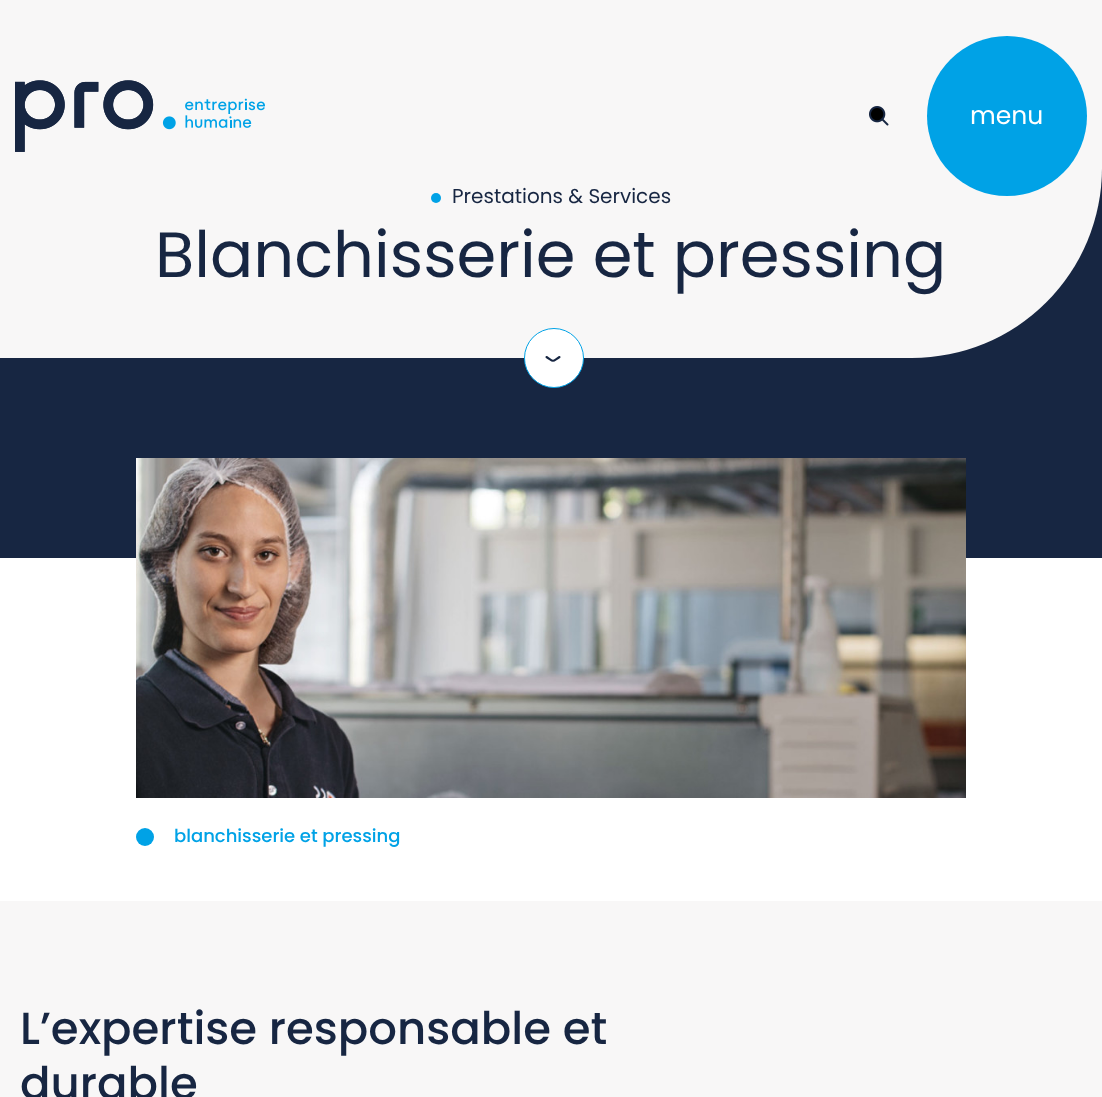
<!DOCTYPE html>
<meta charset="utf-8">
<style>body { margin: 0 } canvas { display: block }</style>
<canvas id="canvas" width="1102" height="1097"></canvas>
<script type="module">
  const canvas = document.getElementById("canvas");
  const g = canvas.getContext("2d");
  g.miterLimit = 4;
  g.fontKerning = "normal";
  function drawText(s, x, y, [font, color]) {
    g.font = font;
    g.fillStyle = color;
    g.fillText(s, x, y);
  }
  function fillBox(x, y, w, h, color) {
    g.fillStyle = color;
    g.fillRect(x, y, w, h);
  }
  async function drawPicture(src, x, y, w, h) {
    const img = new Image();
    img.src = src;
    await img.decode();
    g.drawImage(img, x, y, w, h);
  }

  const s1 = ["25px Poppins", "#FFFFFF"];
  const s2 = ["20px Poppins", "#172642"];
  const s3 = ["64px Poppins", "#172642"];
  const s4 = ["500 18px Poppins", "#00A2E6"];
  const s5 = ["500 45px Poppins", "#172642"];

  fillBox(0, 0, 1102, 1097, "#FFFFFF");
  fillBox(0, 0, 1102, 168, "#F8F7F7");
  await drawPicture("pic1.png", 15, 80, 250, 72);
  await drawPicture("pic2.png", 869, 106, 20, 20);
  fillBox(913, 168, 189, 190, "#172642");
  g.fillStyle = "#F8F7F7";
  g.beginPath();
  g.roundRect(0, 168, 1102, 190, [0, 0, 190, 0]);
  g.fill();
  g.fillStyle = "#00A2E6";
  g.beginPath();
  g.arc(1007, 116, 80, 0, Math.PI * 2);
  g.fill();
  drawText("menu", 970, 124, s1);
  g.fillStyle = "#00A2E6";
  g.beginPath();
  g.arc(436, 198, 5, 0, Math.PI * 2);
  g.fill();
  drawText("Prestations & Services", 452, 203, s2);
  drawText("Blanchisserie et pressing", 155, 277, s3);
  fillBox(0, 358, 1102, 200, "#172642");
  g.fillStyle = "#FFFFFF";
  g.beginPath();
  g.arc(554, 358, 29.5, 0, Math.PI * 2);
  g.fill();
  g.strokeStyle = "#00A2E6";
  g.stroke();
  g.beginPath();
  g.moveTo(546.5, 357);
  g.bezierCurveTo(554.5, 362, 551.5, 362, 559.5, 357);
  g.strokeStyle = "#172642";
  g.lineWidth = 2.1;
  g.lineCap = "round";
  g.stroke();
  await drawPicture("pic3.png", 136, 458, 830, 340);
  g.fillStyle = "#00A2E6";
  g.beginPath();
  g.arc(145, 837, 9, 0, Math.PI * 2);
  g.fill();
  drawText("blanchisserie et pressing", 174, 842, s4);
  fillBox(0, 901, 1102, 196, "#F8F7F7");
  drawText("L’expertise responsable et", 20, 1044, s5);
  drawText("durable", 20, 1099, s5);
</script>
